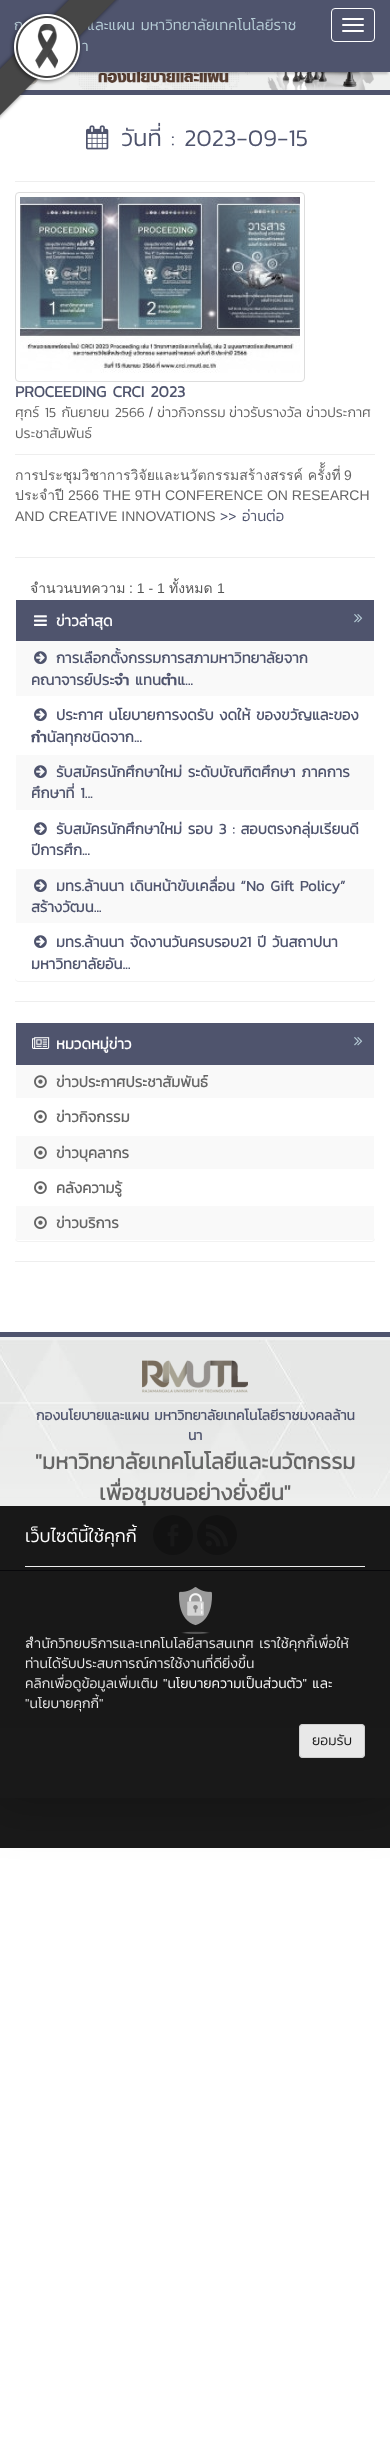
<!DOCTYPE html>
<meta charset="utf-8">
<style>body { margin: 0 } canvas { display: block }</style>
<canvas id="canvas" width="390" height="2443"></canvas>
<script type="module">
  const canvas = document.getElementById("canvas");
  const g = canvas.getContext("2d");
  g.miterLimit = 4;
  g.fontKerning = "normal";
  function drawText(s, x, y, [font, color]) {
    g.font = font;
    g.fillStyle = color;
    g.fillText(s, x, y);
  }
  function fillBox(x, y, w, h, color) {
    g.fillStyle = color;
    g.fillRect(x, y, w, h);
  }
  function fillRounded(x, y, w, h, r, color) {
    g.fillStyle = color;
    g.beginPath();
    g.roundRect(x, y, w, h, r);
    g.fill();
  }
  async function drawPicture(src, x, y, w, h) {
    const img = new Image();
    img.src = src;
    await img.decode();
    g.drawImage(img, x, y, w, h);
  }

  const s1 = ["300 15px Kanit", "#B6CCD6"];
  const s2 = ["300 24px Kanit", "#4F546D"];
  const s3 = ["bold 16px Kanit", "#4F546D"];
  const s4 = ["300 14px Kanit", "#656565"];
  const s5 = ["14px Liberation Sans", "#555555"];
  const s6 = ["14px Loma", "#656565"];
  const s7 = ["14px Liberation Sans", "#656565"];
  const s8 = ["300 15px Kanit", "#4F546D"];
  const s9 = ["14px Loma", "#555555"];
  const s10 = ["bold 15px Kanit", "#FEFEFE"];
  const s11 = ["bold 15px Kanit", "#4F546D"];
  const s12 = ["bold 15px Kanit", "#656565"];
  const s13 = ["bold 14px Kanit", "#4F546D"];
  const s14 = ["bold 22px Kanit", "#656565"];
  const s15 = ["300 18px Kanit", "#FEFEFE"];
  const s16 = ["300 14px Kanit", "#E8E8E8"];
  const s17 = ["300 14px Kanit", "#FEFEFE"];
  const s18 = ["300 14px Kanit", "#171717"];

  fillBox(0, 0, 390, 2443, "#FFFFFF");
  g.fillStyle = "rgba(0, 0, 0, 0.2)";
  g.filter = "blur(25px)";
  g.beginPath();
  g.rect(-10, -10, 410, 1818);
  g.fill();
  g.filter = "none";
  await drawPicture("pic2.png", 25, 72, 365, 18);
  g.filter = "blur(1px)";
  g.beginPath();
  g.rect(2, 6, 386, 68);
  g.fill();
  g.filter = "none";
  fillBox(0, 0, 390, 71, "#4F546D");
  fillBox(68, 71, 322, 1, "#4F546D");
  drawText("ก", 14, 30, s1);
  drawText("และแผน มหาวิทยาลัยเทคโนโลยีราช", 87, 30, s1);
  drawText("า", 82, 51, s1);
  fillBox(0, 95, 390, 1703, "#FFFFFF");
  fillBox(20, 90, 370, 5, "#4F546D");
  await drawPicture("pic1.png", 0, 0, 119, 120);
  g.beginPath();
  g.roundRect(331.5, 8.5, 43, 33, 3.5);
  g.strokeStyle = "#FEFEFE";
  g.stroke();
  fillRounded(342, 18, 22, 2, 1, "#FEFEFE");
  fillRounded(342, 24, 22, 2, 1, "#FEFEFE");
  fillRounded(342, 30, 22, 2, 1, "#FEFEFE");
  fillBox(15, 181, 360, 1, "#EEEEEE");
  await drawPicture("pic3.png", 86, 125, 23, 25);
  drawText("วันที่ : 2023-09-15", 121, 146, s2);
  g.beginPath();
  g.roundRect(15.5, 192.5, 289, 189, 3.5);
  g.strokeStyle = "#DDDDDD";
  g.stroke();
  await drawPicture("pic4.png", 20, 197, 280, 176);
  drawText("PROCEEDING CRCI 2023", 15, 397, s3);
  drawText("ศุกร์ 15 กันยายน 2566", 15, 417, s4);
  drawText("/", 149, 417, s5);
  drawText("ข่าวกิจกรรม", 157, 417, s4);
  drawText("ข่าวรับรางวัล", 229, 417, s4);
  drawText("ข่าวประกาศ", 306, 417, s4);
  drawText("ประชาสัมพันธ์", 15, 438, s4);
  fillBox(15, 454, 360, 1, "#EEEEEE");
  drawText("การประชุมวิชาการวิจัยและนวัตกรรมสร้างสรรค์ ครั้้งที่", 15, 480, s6);
  drawText("9", 344, 480, s7);
  drawText("ประจำปี", 15, 500, s6);
  drawText("2566 THE 9TH CONFERENCE ON RESEARCH", 68, 500, s7);
  drawText("AND CREATIVE INNOVATIONS", 15, 521, s7);
  drawText(">> อ่านต่อ", 220, 521, s8);
  fillBox(15, 557, 360, 1, "#EEEEEE");
  drawText("จำนวนบทความ", 30, 593, s9);
  drawText(": 1 - 1", 129, 593, s5);
  drawText("ทั้งหมด", 169, 593, s9);
  drawText("1", 217, 593, s5);
  g.fillStyle = "rgba(0, 0, 0, 0.05)";
  g.filter = "blur(0.5px)";
  g.beginPath();
  g.roundRect(15, 600, 360, 382, 4);
  g.fill();
  g.filter = "none";
  fillRounded(15, 599, 360, 382, 4, "#FFFFFF");
  fillBox(16, 600, 358, 41, "#4F546D");
  await drawPicture("pic5.png", 34, 615, 13, 11);
  drawText("ข่าวล่าสุด", 56, 626, s10);
  await drawPicture("pic6.png", 354, 614, 9, 9);
  fillBox(16, 641, 358, 55, "#F9F9F9");
  await drawPicture("pic7.png", 34, 651, 13, 14);
  drawText("การเลือกตั้งกรรมการสภามหาวิทยาลัยจาก", 56, 663, s11);
  drawText("คณาจารย์ประจำ แทนตำแ...", 31, 685, s11);
  await drawPicture("pic8.png", 34, 708, 13, 14);
  drawText("ประกาศ นโยบายการงดรับ งดให้ ของขวัญและของ", 56, 720, s11);
  drawText("กำนัลทุกชนิดจาก...", 31, 742, s11);
  fillBox(16, 755, 358, 55, "#F9F9F9");
  await drawPicture("pic7.png", 34, 765, 13, 14);
  drawText("รับสมัครนักศึกษาใหม่ ระดับบัณฑิตศึกษา ภาคการ", 56, 777, s11);
  drawText("ศึกษาที่ 1...", 31, 798, s11);
  await drawPicture("pic8.png", 34, 822, 13, 14);
  drawText("รับสมัครนักศึกษาใหม่ รอบ 3 : สอบตรงกลุ่มเรียนดี", 56, 834, s11);
  drawText("ปีการศึก...", 31, 855, s11);
  fillBox(16, 869, 358, 54, "#F9F9F9");
  await drawPicture("pic7.png", 34, 879, 13, 14);
  drawText("มทร.ล้านนา เดินหน้าขับเคลื่อน “No Gift Policy”", 56, 891, s11);
  drawText("สร้างวัฒน...", 31, 912, s11);
  await drawPicture("pic8.png", 34, 935, 13, 14);
  drawText("มทร.ล้านนา จัดงานวันครบรอบ21 ปี วันสถาปนา", 56, 947, s11);
  drawText("มหาวิทยาลัยอัน...", 31, 969, s11);
  fillBox(15, 1001, 360, 1, "#EEEEEE");
  g.fillStyle = "rgba(0, 0, 0, 0.05)";
  g.filter = "blur(0.5px)";
  g.beginPath();
  g.roundRect(15, 1023, 360, 219, 4);
  g.fill();
  g.filter = "none";
  fillRounded(15, 1022, 360, 219, 4, "#FFFFFF");
  fillBox(16, 1023, 358, 42, "#4F546D");
  await drawPicture("pic9.png", 32, 1037, 18, 12);
  drawText("หมวดหมู่ข่าว", 56, 1049, s10);
  await drawPicture("pic6.png", 354, 1037, 9, 9);
  fillBox(16, 1065, 358, 33, "#F9F9F9");
  await drawPicture("pic10.png", 34, 1075, 13, 14);
  drawText("ข่าวประกาศประชาสัมพันธ์", 56, 1087, s12);
  await drawPicture("pic11.png", 34, 1110, 13, 14);
  drawText("ข่าวกิจกรรม", 56, 1122, s12);
  fillBox(16, 1136, 358, 33, "#F9F9F9");
  await drawPicture("pic10.png", 34, 1146, 13, 14);
  drawText("ข่าวบุคลากร", 56, 1158, s12);
  await drawPicture("pic11.png", 34, 1181, 13, 14);
  drawText("คลังความรู้", 56, 1193, s12);
  fillBox(16, 1206, 358, 34, "#F9F9F9");
  await drawPicture("pic10.png", 34, 1216, 13, 14);
  drawText("ข่าวบริการ", 56, 1228, s12);
  fillBox(15, 1261, 360, 1, "#EEEEEE");
  fillBox(0, 1332, 390, 5, "#4F546D");
  fillBox(0, 1337, 390, 391, "#EEEFEE");
  await drawPicture("pic12.png", 0, 1339, 390, 159);
  fillBox(0, 1570, 390, 1, "#4F546D");
  await drawPicture("pic13.png", 142, 1360, 106, 33);
  drawText("กองนโยบายและแผน มหาวิทยาลัยเทคโนโลยีราชมงคลล้าน", 36, 1420, s13);
  drawText("นา", 188, 1440, s13);
  drawText("\"มหาวิทยาลัยเทคโนโลยีและนวัตกรรม", 35, 1469, s14);
  drawText("เพื่อชุมชนอย่างยั่งยืน\"", 99, 1500, s14);
  g.fillStyle = "#B2B4B8";
  g.beginPath();
  g.arc(173, 1535, 20, 0, Math.PI * 2);
  g.fill();
  await drawPicture("pic14.png", 167, 1524, 12, 23);
  g.beginPath();
  g.arc(217, 1535, 20, 0, Math.PI * 2);
  g.fill();
  await drawPicture("pic15.png", 206, 1524, 22, 23);
  fillBox(0, 1506, 390, 342, "rgba(0, 0, 0, 0.9)");
  drawText("เว็บไซต์นี้ใช้คุกกี้", 25, 1542, s15);
  fillBox(25, 1566, 340, 1, "#EEEEEE");
  await drawPicture("pic16.png", 179, 1587, 33, 47);
  drawText("สำนักวิทยบริการและเทคโนโลยีสารสนเทศ เราใช้คุกกี้เพื่อให้", 25, 1648, s16);
  drawText("ท่านได้รับประสบการณ์การใช้งานที่ดียิ่งขึ้น", 25, 1668, s16);
  drawText("คลิกเพื่อดูข้อมูลเพิ่มเติม", 25, 1688, s16);
  drawText("\"นโยบายความเป็นส่วนตัว\" และ", 163, 1688, s17);
  drawText("\"นโยบายคุกกี้\"", 25, 1708, s16);
  fillRounded(299, 1724, 66, 34, 4, "rgba(255, 255, 255, 0.9)");
  g.beginPath();
  g.roundRect(299.5, 1724.5, 65, 33, 3.5);
  g.strokeStyle = "rgba(204, 204, 204, 0.9)";
  g.stroke();
  drawText("ยอมรับ", 312, 1745, s18);
</script>
